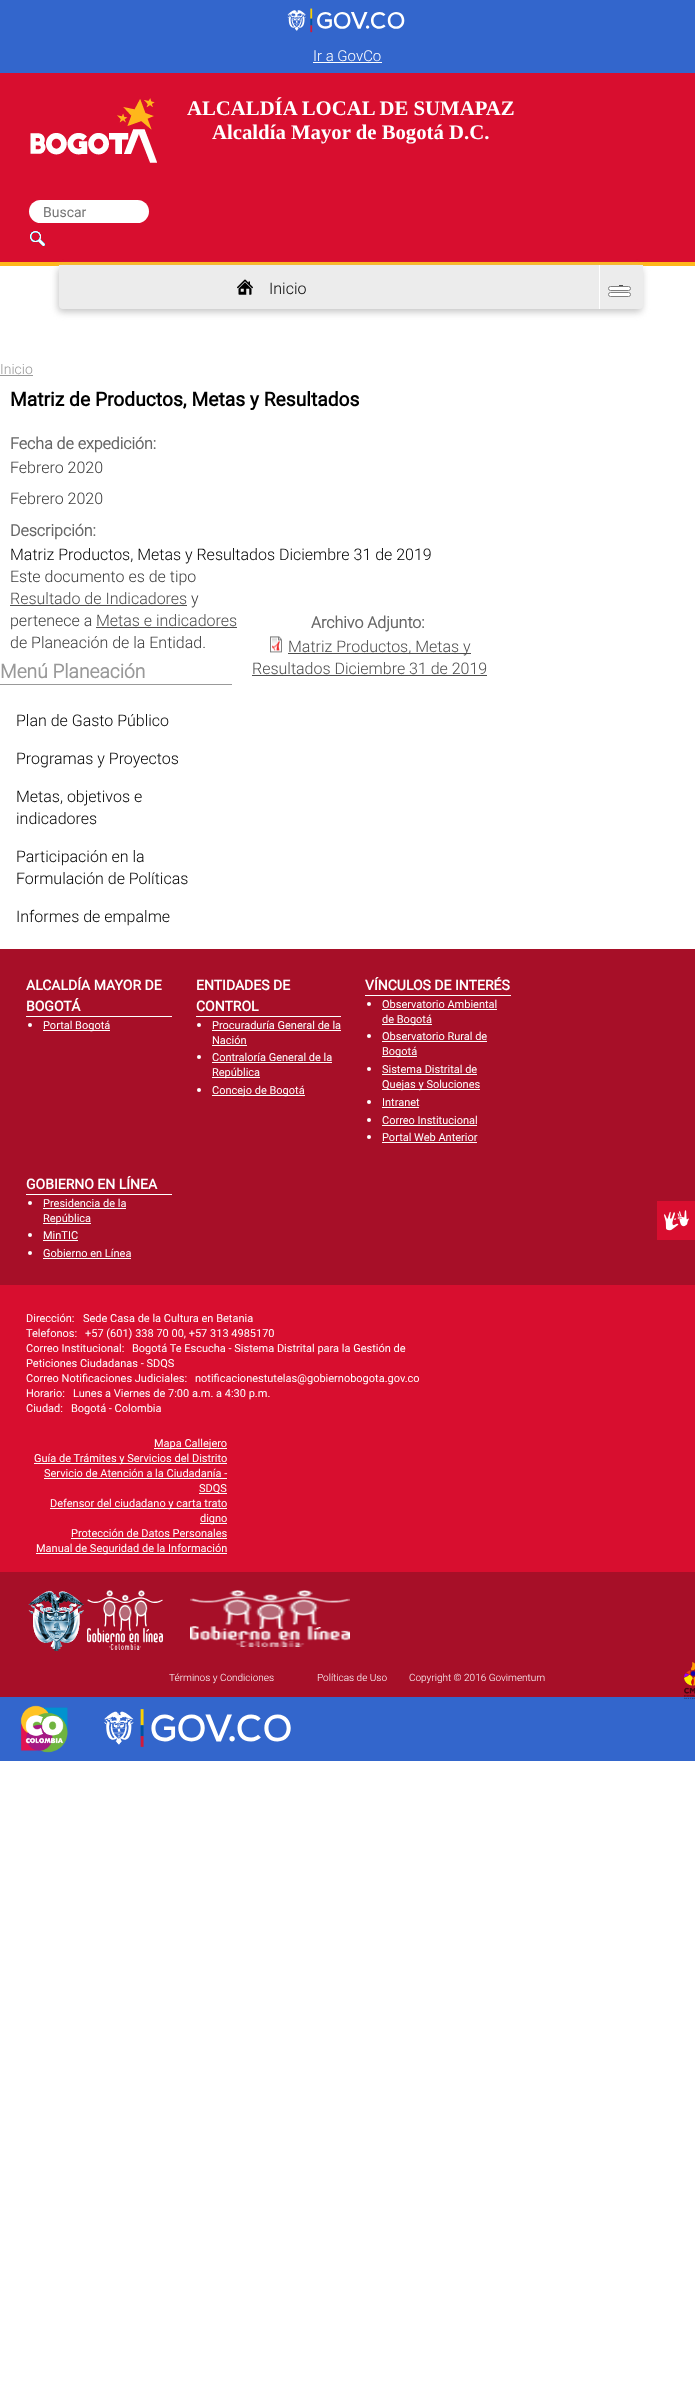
<!DOCTYPE html>
<meta charset="utf-8">
<style>body { margin: 0 } canvas { display: block }</style>
<canvas id="canvas" width="695" height="2398"></canvas>
<script type="module">
  const canvas = document.getElementById("canvas");
  const g = canvas.getContext("2d");
  g.miterLimit = 4;
  g.fontKerning = "normal";
  function drawText(s, x, y, [font, color]) {
    g.font = font;
    g.fillStyle = color;
    g.fillText(s, x, y);
  }
  function fillBox(x, y, w, h, color) {
    g.fillStyle = color;
    g.fillRect(x, y, w, h);
  }
  function fillRounded(x, y, w, h, r, color) {
    g.fillStyle = color;
    g.beginPath();
    g.roundRect(x, y, w, h, r);
    g.fill();
  }
  async function drawPicture(src, x, y, w, h) {
    const img = new Image();
    img.src = src;
    await img.decode();
    g.drawImage(img, x, y, w, h);
  }

  const s1 = ["300 15px Roboto", "#FFFFFF"];
  const s2 = ["bold 20.75px Liberation Serif", "#FFFFFF"];
  const s3 = ["14px Roboto", "#757575"];
  const s4 = ["300 16px Roboto", "#000000"];
  const s5 = ["300 14px Roboto", "#999999"];
  const s6 = ["bold 19.25px Roboto", "#000000"];
  const s7 = ["bold 16px 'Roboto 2'", "#666666"];
  const s8 = ["300 16px Roboto", "#3B3B3B"];
  const s9 = ["300 16px Roboto", "#4D4D4D"];
  const s10 = ["bold 19.25px 'Roboto 2'", "#999999"];
  const s11 = ["bold 14px Roboto", "#FFFFFF"];
  const s12 = ["11px Roboto", "#FFFFFF"];
  const s13 = ["300 10px Roboto", "#FFFFFF"];

  fillBox(0, 0, 695, 2398, "#FFFFFF");
  fillBox(0, 0, 695, 73, "#3366CC");
  await drawPicture("pic1.png", 287, 8, 118, 25);
  drawText("Ir a GovCo", 313, 61, s1);
  fillBox(313, 62, 69, 1, "#FFFFFF");
  fillBox(0, 73, 695, 189, "#D80E2F");
  fillBox(0, 262, 695, 4, "#FFB71B");
  await drawPicture("pic2.png", 30, 98, 127, 65);
  drawText("ALCALDÍA LOCAL DE SUMAPAZ", 187, 115, s2);
  drawText("Alcaldía Mayor de Bogotá D.C.", 212, 139, s2);
  fillRounded(29, 200, 120, 23, 11.5, "#FFFFFF");
  drawText("Buscar", 43, 217, s3);
  await drawPicture("pic3.png", 30, 231, 15, 15);
  g.fillStyle = "#C5C5C5";
  g.filter = "blur(3.5px)";
  g.beginPath();
  g.roundRect(58, 268, 584, 44, 4);
  g.fill();
  g.filter = "none";
  g.fillStyle = "#ECECEC";
  g.beginPath();
  g.roundRect(59, 265, 584, 44, [0, 0, 4, 4]);
  g.fill();
  await drawPicture("pic4.png", 237, 279, 16, 16);
  drawText("Inicio", 269, 294, s4);
  fillBox(599, 265, 1, 44, "#FFFFFF");
  fillBox(619, 285, 4, 1, "#4D4D4D");
  g.fillStyle = "#FFFFFF";
  g.beginPath();
  g.roundRect(608.5, 286.5, 22, 4, 2);
  g.fill();
  g.strokeStyle = "#808080";
  g.stroke();
  g.beginPath();
  g.roundRect(608.5, 292.5, 22, 4, 2);
  g.fill();
  g.stroke();
  drawText("Inicio", 0, 374, s5);
  fillBox(0, 375, 33, 1, "#999999");
  drawText("Matriz de Productos, Metas y Resultados", 10, 406, s6);
  drawText("Fecha de expedición:", 10, 449, s7);
  drawText("Febrero 2020", 10, 473, s8);
  drawText("Febrero 2020", 10, 504, s8);
  drawText("Descripción:", 10, 536, s7);
  drawText("Matriz Productos, Metas y Resultados Diciembre 31 de 2019", 10, 560, s4);
  drawText("Este documento es de tipo", 10, 582, s8);
  drawText("Resultado de Indicadores", 10, 604, s9);
  fillBox(10, 605, 177, 1, "#4D4D4D");
  drawText("y", 191, 604, s8);
  drawText("pertenece a", 10, 626, s8);
  drawText("Metas e indicadores", 96, 626, s9);
  fillBox(96, 627, 141, 1, "#4D4D4D");
  drawText("de Planeación de la Entidad.", 10, 648, s8);
  drawText("Archivo Adjunto:", 311, 628, s7);
  await drawPicture("pic5.png", 270, 636, 12, 17);
  fillBox(288, 653, 183, 1, "#4D4D4D");
  drawText("Matriz Productos, Metas y", 288, 652, s9);
  drawText("Resultados Diciembre 31 de 2019", 252, 674, s9);
  fillBox(252, 675, 235, 1, "#4D4D4D");
  fillBox(0, 684, 232, 1, "#999999");
  drawText("Menú Planeación", 0, 678, s10);
  drawText("Plan de Gasto Público", 16, 726, s4);
  drawText("Programas y Proyectos", 16, 764, s4);
  drawText("Metas, objetivos e", 16, 802, s4);
  drawText("indicadores", 16, 824, s4);
  drawText("Participación en la", 16, 862, s4);
  drawText("Formulación de Políticas", 16, 884, s4);
  drawText("Informes de empalme", 16, 922, s4);
  fillBox(0, 949, 695, 748, "#A70F28");
  fillBox(26, 1016, 146, 1, "#FFFFFF");
  drawText("ALCALDÍA MAYOR DE", 26, 990, s11);
  drawText("BOGOTÁ", 26, 1011, s11);
  g.beginPath();
  g.arc(30, 1025, 2, 0, Math.PI * 2);
  g.fill();
  fillBox(43, 1030, 67, 1, "#FFFFFF");
  drawText("Portal Bogotá", 43, 1029, s12);
  fillBox(196, 1016, 145, 1, "#FFFFFF");
  drawText("ENTIDADES DE", 196, 990, s11);
  drawText("CONTROL", 196, 1011, s11);
  g.beginPath();
  g.arc(199, 1025, 2, 0, Math.PI * 2);
  g.fill();
  drawText("Procuraduría General de la", 212, 1029, s12);
  fillBox(212, 1030, 129, 1, "#FFFFFF");
  drawText("Nación", 212, 1044, s12);
  fillBox(212, 1045, 35, 1, "#FFFFFF");
  g.beginPath();
  g.arc(199, 1057, 2, 0, Math.PI * 2);
  g.fill();
  drawText("Contraloría General de la", 212, 1061, s12);
  fillBox(212, 1062, 120, 1, "#FFFFFF");
  fillBox(212, 1077, 48, 1, "#FFFFFF");
  drawText("República", 212, 1076, s12);
  g.beginPath();
  g.arc(199, 1090, 2, 0, Math.PI * 2);
  g.fill();
  fillBox(212, 1095, 93, 1, "#FFFFFF");
  drawText("Concejo de Bogotá", 212, 1094, s12);
  fillBox(365, 995, 146, 1, "#FFFFFF");
  drawText("VÍNCULOS DE INTERÉS", 365, 990, s11);
  g.beginPath();
  g.arc(369, 1004, 2, 0, Math.PI * 2);
  g.fill();
  drawText("Observatorio Ambiental", 382, 1008, s12);
  fillBox(382, 1009, 115, 1, "#FFFFFF");
  fillBox(382, 1024, 50, 1, "#FFFFFF");
  drawText("de Bogotá", 382, 1023, s12);
  g.beginPath();
  g.arc(369, 1036, 2, 0, Math.PI * 2);
  g.fill();
  drawText("Observatorio Rural de", 382, 1040, s12);
  fillBox(382, 1041, 105, 1, "#FFFFFF");
  fillBox(382, 1056, 35, 1, "#FFFFFF");
  drawText("Bogotá", 382, 1055, s12);
  g.beginPath();
  g.arc(369, 1069, 2, 0, Math.PI * 2);
  g.fill();
  drawText("Sistema Distrital de", 382, 1073, s12);
  fillBox(382, 1074, 95, 1, "#FFFFFF");
  fillBox(382, 1089, 98, 1, "#FFFFFF");
  drawText("Quejas y Soluciones", 382, 1088, s12);
  g.beginPath();
  g.arc(369, 1102, 2, 0, Math.PI * 2);
  g.fill();
  drawText("Intranet", 382, 1106, s12);
  fillBox(382, 1107, 37, 1, "#FFFFFF");
  g.beginPath();
  g.arc(369, 1120, 2, 0, Math.PI * 2);
  g.fill();
  drawText("Correo Institucional", 382, 1124, s12);
  fillBox(382, 1125, 95, 1, "#FFFFFF");
  g.beginPath();
  g.arc(369, 1137, 2, 0, Math.PI * 2);
  g.fill();
  drawText("Portal Web Anterior", 382, 1141, s12);
  fillBox(382, 1142, 95, 1, "#FFFFFF");
  fillBox(26, 1194, 146, 1, "#FFFFFF");
  drawText("GOBIERNO EN LÍNEA", 26, 1189, s11);
  g.beginPath();
  g.arc(30, 1203, 2, 0, Math.PI * 2);
  g.fill();
  drawText("Presidencia de la", 43, 1207, s12);
  fillBox(43, 1208, 83, 1, "#FFFFFF");
  fillBox(43, 1223, 48, 1, "#FFFFFF");
  drawText("República", 43, 1222, s12);
  g.beginPath();
  g.arc(30, 1235, 2, 0, Math.PI * 2);
  g.fill();
  drawText("MinTIC", 43, 1239, s12);
  fillBox(43, 1240, 35, 1, "#FFFFFF");
  g.beginPath();
  g.arc(30, 1253, 2, 0, Math.PI * 2);
  g.fill();
  drawText("Gobierno en Línea", 43, 1257, s12);
  fillBox(43, 1258, 88, 1, "#FFFFFF");
  fillBox(0, 1285, 695, 287, "#D80E2F");
  fillBox(657, 1201, 38, 39, "#D80E2F");
  await drawPicture("pic6.png", 664, 1210, 25, 21);
  drawText("Dirección:", 26, 1322, s12);
  drawText("Sede Casa de la Cultura en Betania", 83, 1322, s12);
  drawText("Telefonos:", 26, 1337, s12);
  drawText("+57 (601) 338 70 00, +57 313 4985170", 85, 1337, s12);
  drawText("Correo Institucional:", 26, 1352, s12);
  drawText("Bogotá Te Escucha - Sistema Distrital para la Gestión de", 132, 1352, s12);
  drawText("Peticiones Ciudadanas - SDQS", 26, 1367, s12);
  drawText("Correo Notificaciones Judiciales:", 26, 1382, s12);
  drawText("notificacionestutelas@gobiernobogota.gov.co", 195, 1382, s12);
  drawText("Horario:", 26, 1397, s12);
  drawText("Lunes a Viernes de 7:00 a.m. a 4:30 p.m.", 73, 1397, s12);
  drawText("Ciudad:", 26, 1412, s12);
  drawText("Bogotá - Colombia", 71, 1412, s12);
  fillBox(154, 1448, 73, 1, "#FFFFFF");
  drawText("Mapa Callejero", 154, 1447, s12);
  fillBox(34, 1463, 193, 1, "#FFFFFF");
  drawText("Guía de Trámites y Servicios del Distrito", 34, 1462, s12);
  drawText("Servicio de Atención a la Ciudadanía -", 44, 1477, s12);
  fillBox(44, 1478, 183, 1, "#FFFFFF");
  fillBox(199, 1493, 28, 1, "#FFFFFF");
  drawText("SDQS", 199, 1492, s12);
  fillBox(50, 1508, 177, 1, "#FFFFFF");
  drawText("Defensor del ciudadano y carta trato", 50, 1507, s12);
  fillBox(200, 1523, 27, 1, "#FFFFFF");
  drawText("digno", 200, 1522, s12);
  drawText("Protección de Datos Personales", 71, 1537, s12);
  fillBox(71, 1538, 156, 1, "#FFFFFF");
  fillBox(36, 1553, 191, 1, "#FFFFFF");
  drawText("Manual de Seguridad de la Información", 36, 1552, s12);
  await drawPicture("pic7.png", 28, 1590, 56, 61);
  await drawPicture("pic8.png", 87, 1590, 76, 60);
  await drawPicture("pic9.png", 190, 1590, 160, 57);
  drawText("Términos y Condiciones", 169, 1681, s13);
  drawText("Políticas de Uso", 317, 1681, s13);
  drawText("Copyright © 2016 Govimentum", 409, 1681, s13);
  fillBox(0, 1697, 695, 64, "#3366CC");
  await drawPicture("pic10.png", 684, 1662, 11, 37);
  await drawPicture("pic11.png", 20, 1705, 48, 48);
  await drawPicture("pic12.png", 104, 1709, 187, 38);
</script>
